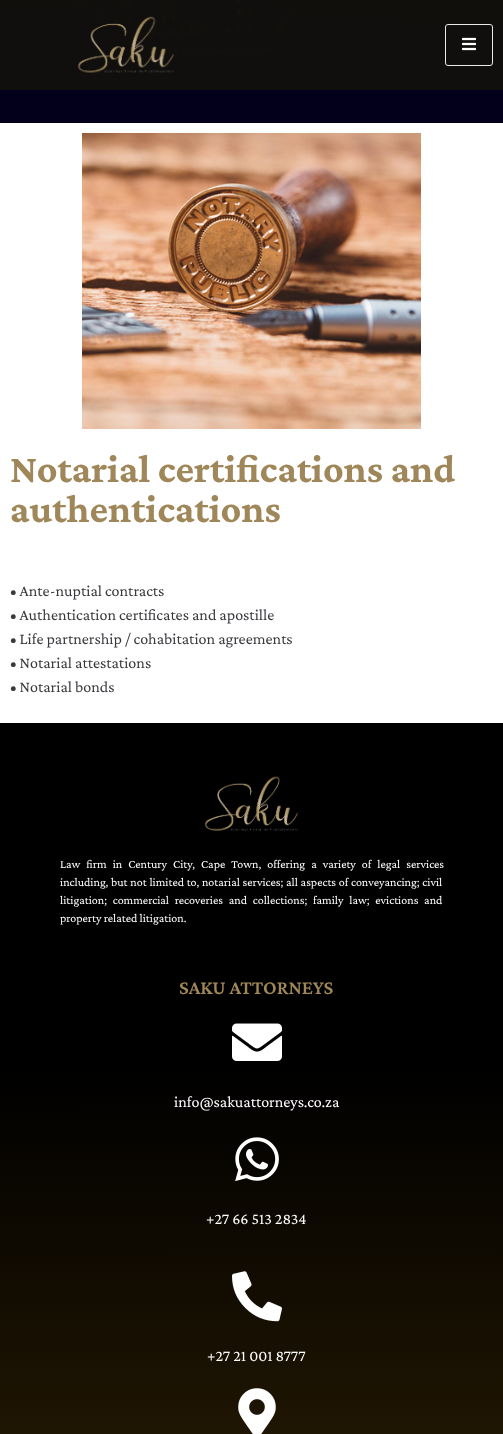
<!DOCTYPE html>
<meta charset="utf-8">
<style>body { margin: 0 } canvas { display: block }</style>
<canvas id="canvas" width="503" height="1434"></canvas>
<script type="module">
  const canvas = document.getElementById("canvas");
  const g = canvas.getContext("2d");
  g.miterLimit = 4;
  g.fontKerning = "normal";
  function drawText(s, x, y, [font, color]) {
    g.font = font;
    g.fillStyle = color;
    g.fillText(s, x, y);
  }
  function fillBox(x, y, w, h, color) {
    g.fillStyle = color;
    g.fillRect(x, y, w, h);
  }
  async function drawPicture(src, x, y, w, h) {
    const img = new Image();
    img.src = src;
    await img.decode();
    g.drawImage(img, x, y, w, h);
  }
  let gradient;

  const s1 = ["bold 40px Crimson Pro", "#9F8759"];
  const s2 = ["16px Crimson Pro", "#383A3E"];
  const s3 = ["12px Crimson Pro", "#FFFFFF"];
  const s4 = ["600 20px Crimson Pro", "#9F8759"];
  const s5 = ["16px Crimson Pro", "#FFFFFF"];

  fillBox(0, 0, 503, 1434, "#FFFFFF");
  await drawPicture("pic3.png", 0, 0, 503, 123);
  fillBox(0, 0, 503, 90, "rgba(19, 18, 11, 0.82)");
  await drawPicture("pic1.png", 77, 16, 97, 58);
  g.beginPath();
  g.roundRect(445.5, 24.5, 47, 41, 2.5);
  g.strokeStyle = "#EAEAEB";
  g.stroke();
  await drawPicture("pic2.png", 462, 37, 14, 14);
  await drawPicture("pic4.png", 82, 133, 339, 296);
  drawText("Notarial certifications and", 10, 482, s1);
  drawText("authentications", 10, 522, s1);
  drawText("• Ante-nuptial contracts", 10, 596, s2);
  drawText("• Authentication certificates and apostille", 10, 620, s2);
  drawText("• Life partnership / cohabitation agreements", 10, 644, s2);
  drawText("• Notarial attestations", 10, 668, s2);
  drawText("• Notarial bonds", 10, 692, s2);
  gradient = g.createLinearGradient(251, 723, 252, 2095);
  gradient.addColorStop(0.25, "#000000");
  gradient.addColorStop(1, "#563B07");
  g.fillStyle = gradient;
  g.fillRect(0, 723, 503, 711);
  await drawPicture("pic5.png", 204, 776, 94, 56);
  g.wordSpacing = "3.75px";
  drawText("Law firm in Century City, Cape Town, offering a variety of legal services", 60, 868, s3);
  g.wordSpacing = "0.5px";
  drawText("including, but not limited to, notarial services; all aspects of conveyancing; civil", 60, 886, s3);
  g.wordSpacing = "3.5px";
  drawText("litigation; commercial recoveries and collections; family law; evictions and", 60, 904, s3);
  g.wordSpacing = "0px";
  drawText("property related litigation.", 60, 922, s3);
  drawText("SAKU ATTORNEYS", 179, 994, s4);
  await drawPicture("pic6.png", 232, 1023, 50, 38);
  drawText("info@sakuattorneys.co.za", 174, 1107, s5);
  await drawPicture("pic7.png", 235, 1137, 44, 45);
  drawText("+27 66 513 2834", 206, 1224, s5);
  await drawPicture("pic8.png", 232, 1271, 50, 51);
  drawText("+27 21 001 8777", 207, 1361, s5);
  await drawPicture("pic9.png", 238, 1388, 38, 46);
</script>
